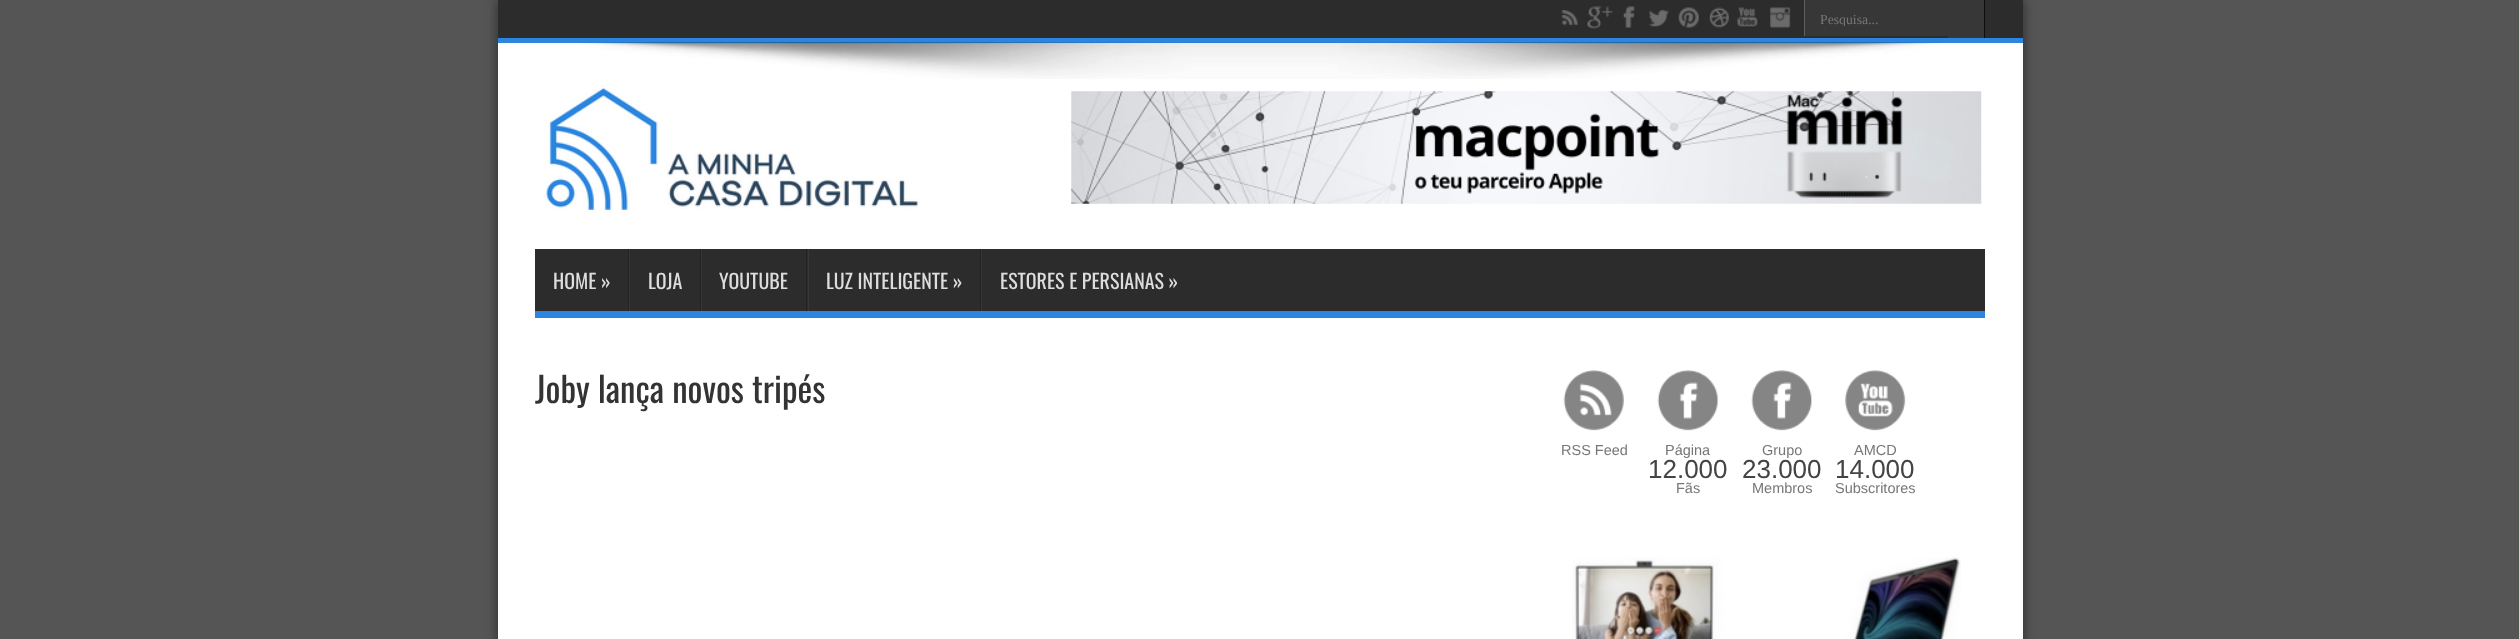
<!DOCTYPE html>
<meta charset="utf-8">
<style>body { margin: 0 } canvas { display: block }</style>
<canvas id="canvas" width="2519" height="639"></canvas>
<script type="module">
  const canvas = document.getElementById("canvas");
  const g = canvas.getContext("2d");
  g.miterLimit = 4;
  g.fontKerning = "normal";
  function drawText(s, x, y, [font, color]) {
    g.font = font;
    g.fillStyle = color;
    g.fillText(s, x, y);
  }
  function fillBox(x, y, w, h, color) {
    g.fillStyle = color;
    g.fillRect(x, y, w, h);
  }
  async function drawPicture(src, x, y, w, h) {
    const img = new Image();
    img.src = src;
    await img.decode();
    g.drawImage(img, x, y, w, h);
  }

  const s1 = ["13.75px Liberation Serif", "#777777"];
  const s2 = ["20px Oswald", "#DDDDDD"];
  const s3 = ["35px Oswald", "#333333"];
  const s4 = ["14.5px Liberation Sans", "#777777"];
  const s5 = ["26px Liberation Sans", "#444444"];

  fillBox(0, 0, 2519, 639, "#555555");
  g.fillStyle = "rgba(0, 0, 0, 0.5)";
  g.filter = "blur(6px)";
  g.beginPath();
  g.rect(498, 0, 1525, 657);
  g.fill();
  g.filter = "none";
  fillBox(498, 43, 1525, 596, "#FFFFFF");
  fillBox(498, 0, 1525, 38, "#2C2C2C");
  fillBox(498, 38, 1525, 5, "#2C86DF");
  await drawPicture("pic1.png", 1561, 10, 17, 16);
  await drawPicture("pic2.png", 1587, 6, 26, 23);
  await drawPicture("pic3.png", 1623, 6, 12, 22);
  await drawPicture("pic4.png", 1648, 10, 21, 17);
  await drawPicture("pic5.png", 1678, 7, 21, 21);
  await drawPicture("pic6.png", 1709, 7, 20, 21);
  await drawPicture("pic7.png", 1737, 7, 21, 20);
  await drawPicture("pic8.png", 1770, 7, 21, 21);
  fillBox(1805, 0, 143, 36, "#373737");
  fillBox(1804, 0, 1, 36, "#606060");
  g.save();
  g.beginPath();
  g.rect(1820, 11, 113, 15);
  g.clip();
  drawText("Pesquisa...", 1820, 24, s1);
  g.restore();
  fillBox(1948, 0, 36, 38, "#373737");
  fillBox(1984, 0, 1, 38, "#0D0D0D");
  await drawPicture("pic9.png", 581, 42, 1361, 37);
  await drawPicture("pic10.png", 546, 87, 372, 123);
  await drawPicture("pic11.png", 1071, 91, 911, 113);
  fillBox(535, 249, 1450, 62, "#2C2C2C");
  fillBox(535, 311, 1450, 7, "#2C86DF");
  drawText("HOME »", 553, 289, s2);
  fillBox(628, 249, 1, 62, "#222222");
  fillBox(629, 249, 1, 62, "#383838");
  drawText("LOJA", 648, 289, s2);
  fillBox(700, 249, 1, 62, "#222222");
  fillBox(701, 249, 1, 62, "#383838");
  drawText("YOUTUBE", 719, 289, s2);
  fillBox(806, 249, 1, 62, "#222222");
  fillBox(808, 249, 1, 62, "#383838");
  drawText("LUZ INTELIGENTE »", 826, 289, s2);
  fillBox(980, 249, 1, 62, "#222222");
  fillBox(981, 249, 1, 62, "#383838");
  drawText("ESTORES E PERSIANAS »", 1000, 289, s2);
  drawText("Joby lança novos tripés", 535, 403, s3);
  await drawPicture("pic12.png", 1563, 370, 61, 61);
  drawText("RSS Feed", 1561, 455, s4);
  await drawPicture("pic13.png", 1657, 370, 62, 61);
  drawText("Página", 1665, 455, s4);
  drawText("12.000", 1648, 478, s5);
  drawText("Fãs", 1676, 493, s4);
  await drawPicture("pic14.png", 1751, 370, 61, 61);
  drawText("Grupo", 1762, 455, s4);
  drawText("23.000", 1742, 478, s5);
  drawText("Membros", 1752, 493, s4);
  await drawPicture("pic15.png", 1844, 370, 62, 61);
  drawText("AMCD", 1854, 455, s4);
  drawText("14.000", 1835, 478, s5);
  drawText("Subscritores", 1835, 493, s4);
  await drawPicture("pic16.png", 1572, 557, 389, 82);
</script>
